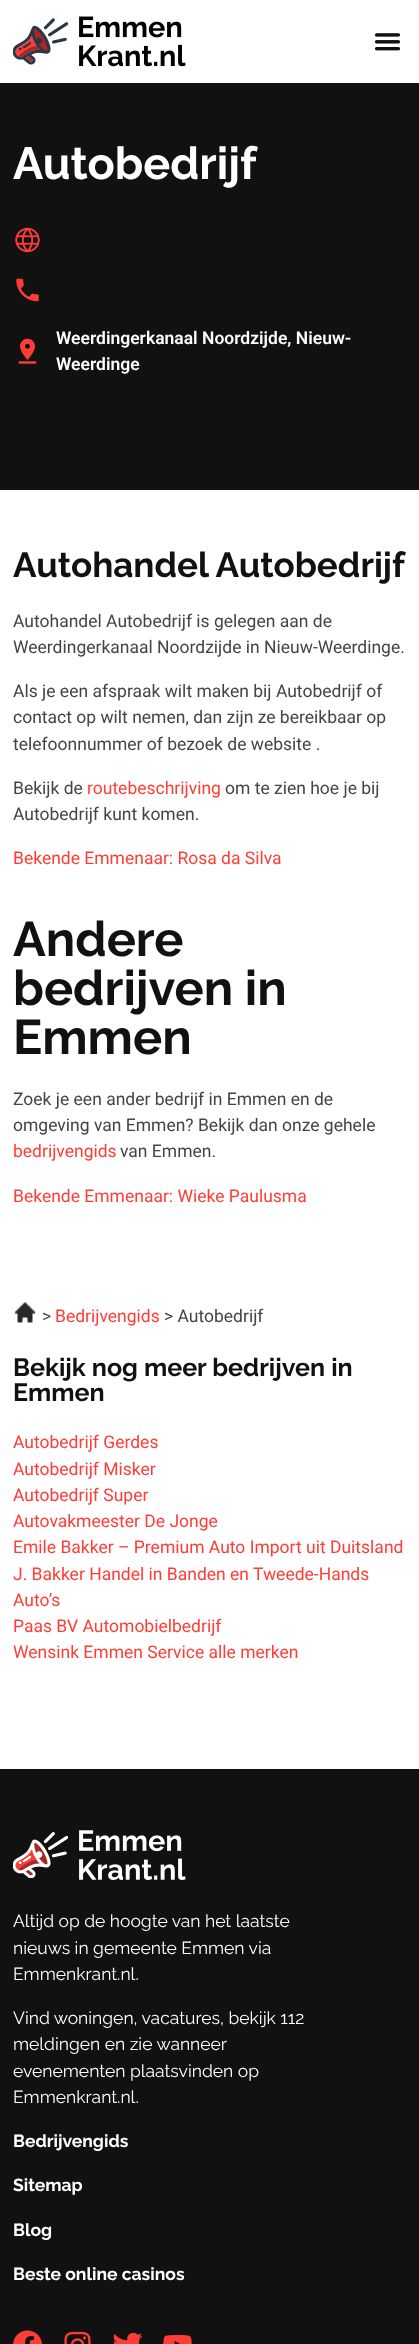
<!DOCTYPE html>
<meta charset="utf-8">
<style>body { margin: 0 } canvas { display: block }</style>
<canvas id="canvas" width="419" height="2344"></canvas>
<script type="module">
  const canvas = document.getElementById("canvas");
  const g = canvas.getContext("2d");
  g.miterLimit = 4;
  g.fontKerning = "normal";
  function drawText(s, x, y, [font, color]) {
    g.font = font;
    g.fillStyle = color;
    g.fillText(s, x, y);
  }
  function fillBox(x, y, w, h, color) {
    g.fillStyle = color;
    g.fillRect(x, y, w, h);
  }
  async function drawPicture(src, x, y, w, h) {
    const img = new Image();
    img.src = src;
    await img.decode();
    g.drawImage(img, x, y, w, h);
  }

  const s1 = ["bold 45px Raleway", "#FFFFFF"];
  const s2 = ["600 17.5px Roboto", "#FFFFFF"];
  const s3 = ["bold 35px Raleway", "#111111"];
  const s4 = ["17.5px Roboto", "#444444"];
  const s5 = ["17.5px Roboto", "#FF3C36"];
  const s6 = ["bold 48.75px Raleway", "#111111"];
  const s7 = ["bold 25px Raleway", "#111111"];
  const s8 = ["17.5px Raleway", "#FFFFFF"];
  const s9 = ["bold 17.5px Raleway", "#FFFFFF"];

  fillBox(0, 0, 419, 2344, "#FFFFFF");
  await drawPicture("pic1.png", 13, 16, 173, 51);
  await drawPicture("pic2.png", 374, 33, 27, 18);
  fillBox(0, 83, 419, 407, "#111111");
  drawText("Autobedrijf", 13, 179, s1);
  await drawPicture("pic3.png", 15, 227, 25, 26);
  await drawPicture("pic4.png", 16, 278, 23, 24);
  await drawPicture("pic5.png", 18, 338, 19, 26);
  drawText("Weerdingerkanaal Noordzijde, Nieuw-", 56, 344, s2);
  drawText("Weerdinge", 56, 370, s2);
  drawText("Autohandel Autobedrijf", 13, 577, s3);
  drawText("Autohandel Autobedrijf is gelegen aan de", 13, 627, s4);
  drawText("Weerdingerkanaal Noordzijde in Nieuw-Weerdinge.", 13, 653, s4);
  drawText("Als je een afspraak wilt maken bij Autobedrijf of", 13, 697, s4);
  drawText("contact op wilt nemen, dan zijn ze bereikbaar op", 13, 723, s4);
  drawText("telefoonnummer of bezoek de website .", 13, 750, s4);
  drawText("Bekijk de", 13, 794, s4);
  drawText("routebeschrijving", 87, 794, s5);
  drawText("om te zien hoe je bij", 225, 794, s4);
  drawText("Autobedrijf kunt komen.", 13, 820, s4);
  drawText("Bekende Emmenaar: Rosa da Silva", 13, 864, s5);
  drawText("Andere", 13, 956, s6);
  drawText("bedrijven in", 13, 1005, s6);
  drawText("Emmen", 13, 1054, s6);
  drawText("Zoek je een ander bedrijf in Emmen en de", 13, 1105, s4);
  drawText("omgeving van Emmen? Bekijk dan onze gehele", 13, 1131, s4);
  drawText("bedrijvengids", 13, 1157, s5);
  drawText("van Emmen.", 120, 1157, s4);
  drawText("Bekende Emmenaar: Wieke Paulusma", 13, 1202, s5);
  await drawPicture("pic6.png", 14, 1302, 22, 21);
  drawText(">", 42, 1322, s4);
  drawText("Bedrijvengids", 55, 1322, s5);
  drawText("> Autobedrijf", 164, 1322, s4);
  drawText("Bekijk nog meer bedrijven in", 13, 1376, s7);
  drawText("Emmen", 13, 1401, s7);
  drawText("Autobedrijf Gerdes", 13, 1448, s5);
  drawText("Autobedrijf Misker", 13, 1475, s5);
  drawText("Autobedrijf Super", 13, 1501, s5);
  drawText("Autovakmeester De Jonge", 13, 1527, s5);
  drawText("Emile Bakker – Premium Auto Import uit Duitsland", 13, 1553, s5);
  drawText("J. Bakker Handel in Banden en Tweede-Hands", 13, 1580, s5);
  drawText("Auto’s", 13, 1606, s5);
  drawText("Paas BV Automobielbedrijf", 13, 1632, s5);
  drawText("Wensink Emmen Service alle merken", 13, 1658, s5);
  fillBox(0, 1769, 419, 575, "#111111");
  await drawPicture("pic7.png", 13, 1830, 173, 50);
  drawText("Altijd op de hoogte van het laatste", 13, 1927, s8);
  drawText("nieuws in gemeente Emmen via", 13, 1954, s8);
  drawText("Emmenkrant.nl.", 13, 1980, s8);
  drawText("Vind woningen, vacatures, bekijk 112", 13, 2024, s8);
  drawText("meldingen en zie wanneer", 13, 2050, s8);
  drawText("evenementen plaatsvinden op", 13, 2077, s8);
  drawText("Emmenkrant.nl.", 13, 2103, s8);
  drawText("Bedrijvengids", 13, 2147, s9);
  drawText("Sitemap", 13, 2191, s9);
  drawText("Blog", 13, 2236, s9);
  drawText("Beste online casinos", 13, 2280, s9);
  await drawPicture("pic8.png", 13, 2330, 29, 14);
  await drawPicture("pic9.png", 64, 2331, 27, 13);
  await drawPicture("pic10.png", 113, 2332, 30, 12);
  await drawPicture("pic11.png", 163, 2335, 29, 9);
</script>
